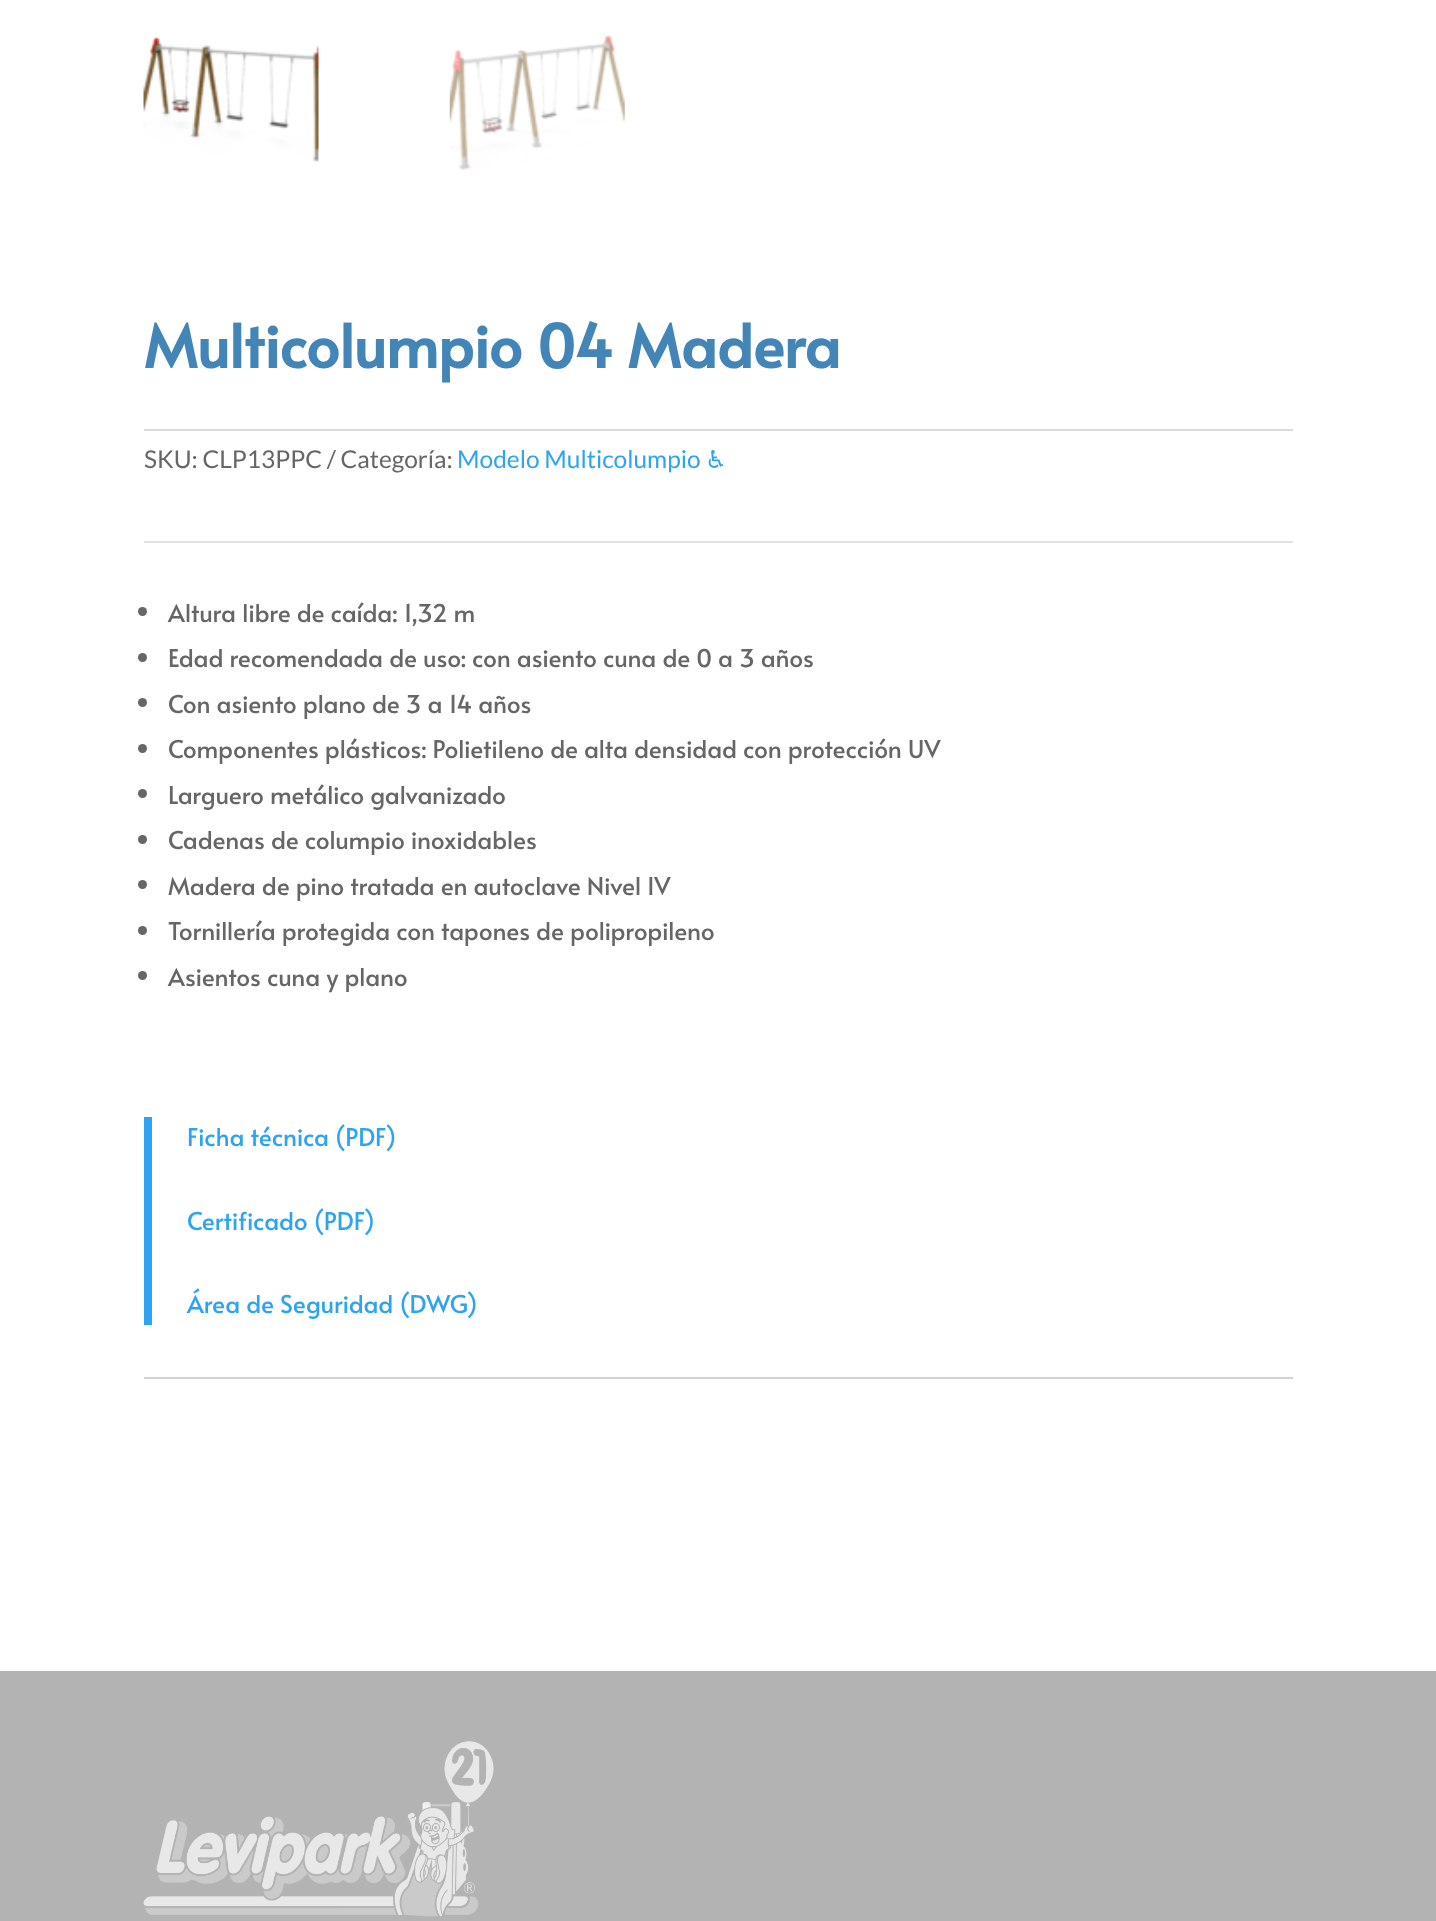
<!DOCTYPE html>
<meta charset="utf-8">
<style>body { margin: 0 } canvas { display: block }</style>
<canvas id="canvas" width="1436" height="1921"></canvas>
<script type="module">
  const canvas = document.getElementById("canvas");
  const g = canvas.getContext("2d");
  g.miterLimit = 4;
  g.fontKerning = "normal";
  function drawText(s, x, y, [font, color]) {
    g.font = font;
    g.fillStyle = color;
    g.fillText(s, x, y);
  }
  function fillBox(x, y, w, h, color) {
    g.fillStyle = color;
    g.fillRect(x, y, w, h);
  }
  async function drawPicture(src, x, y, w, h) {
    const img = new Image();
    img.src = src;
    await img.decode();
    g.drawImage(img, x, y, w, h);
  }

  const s1 = ["bold 59.5px Alata", "#4385B6"];
  const s2 = ["24.5px Lato", "#666666"];
  const s3 = ["24.5px Lato", "#2EA3F2"];
  const s4 = ["24.5px DejaVu Sans", "#2EA3F2"];
  const s5 = ["24.5px Alata", "#666666"];
  const s6 = ["24.5px Alata", "#2EA3F2"];

  fillBox(0, 0, 1436, 1921, "#FFFFFF");
  await drawPicture("pic1.png", 143, 36, 176, 127);
  await drawPicture("pic2.png", 449, 34, 176, 137);
  drawText("Multicolumpio 04 Madera", 144, 368, s1);
  fillBox(144, 429, 1149, 2, "#DADADA");
  drawText("SKU: CLP13PPC / Categoría:", 144, 468, s2);
  drawText("Modelo Multicolumpio", 457, 468, s3);
  drawText("♿︎", 705, 468, s4);
  fillBox(144, 541, 1149, 2, "#E2E2E2");
  g.fillStyle = "#666666";
  g.beginPath();
  g.arc(142.5, 611.5, 4.5, 0, Math.PI * 2);
  g.fill();
  drawText("Altura libre de caída: 1,32 m", 168, 622, s5);
  g.beginPath();
  g.arc(142.5, 657.5, 4.5, 0, Math.PI * 2);
  g.fill();
  drawText("Edad recomendada de uso: con asiento cuna de 0 a 3 años", 168, 667, s5);
  g.beginPath();
  g.arc(142.5, 702.5, 4.5, 0, Math.PI * 2);
  g.fill();
  drawText("Con asiento plano de 3 a 14 años", 168, 713, s5);
  g.beginPath();
  g.arc(142.5, 748.5, 4.5, 0, Math.PI * 2);
  g.fill();
  drawText("Componentes plásticos: Polietileno de alta densidad con protección UV", 168, 758, s5);
  g.beginPath();
  g.arc(142.5, 793.5, 4.5, 0, Math.PI * 2);
  g.fill();
  drawText("Larguero metálico galvanizado", 168, 804, s5);
  g.beginPath();
  g.arc(142.5, 839.5, 4.5, 0, Math.PI * 2);
  g.fill();
  drawText("Cadenas de columpio inoxidables", 168, 849, s5);
  g.beginPath();
  g.arc(142.5, 884.5, 4.5, 0, Math.PI * 2);
  g.fill();
  drawText("Madera de pino tratada en autoclave Nivel IV", 168, 895, s5);
  g.beginPath();
  g.arc(142.5, 930.5, 4.5, 0, Math.PI * 2);
  g.fill();
  drawText("Tornillería protegida con tapones de polipropileno", 168, 940, s5);
  g.beginPath();
  g.arc(142.5, 975.5, 4.5, 0, Math.PI * 2);
  g.fill();
  drawText("Asientos cuna y plano", 168, 986, s5);
  fillBox(144, 1117, 8, 208, "#2EA3F2");
  drawText("Ficha técnica (PDF)", 187, 1146, s6);
  drawText("Certificado (PDF)", 187, 1230, s6);
  drawText("Área de Seguridad (DWG)", 187, 1313, s6);
  fillBox(144, 1377, 1149, 2, "#D3D3D3");
  fillBox(0, 1671, 1436, 250, "#B3B3B3");
  await drawPicture("pic3.png", 143, 1741, 351, 176);
</script>
